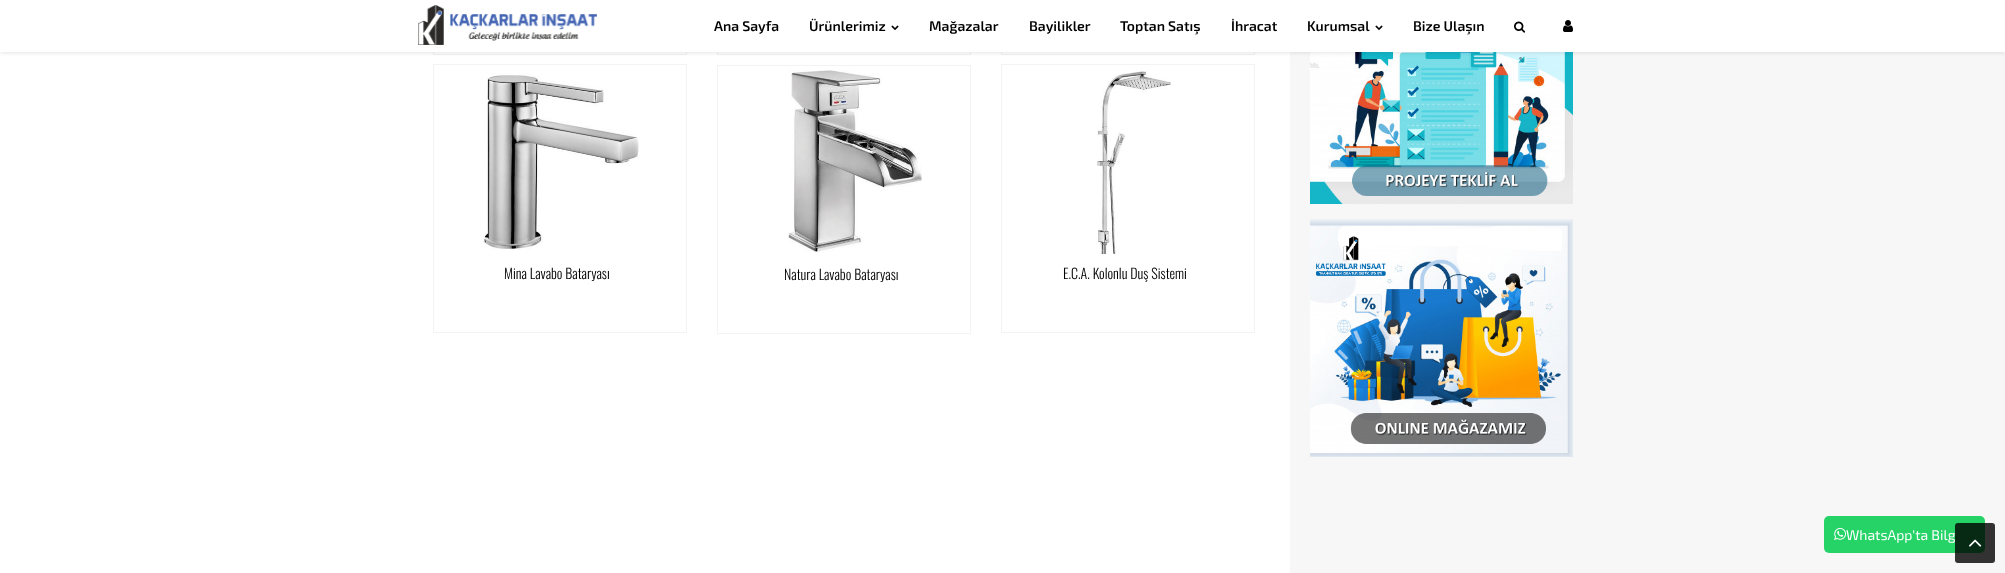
<!DOCTYPE html>
<meta charset="utf-8">
<style>body { margin: 0 } canvas { display: block }</style>
<canvas id="canvas" width="2005" height="573"></canvas>
<script type="module">
  const canvas = document.getElementById("canvas");
  const g = canvas.getContext("2d");
  g.miterLimit = 4;
  g.fontKerning = "normal";
  function drawText(s, x, y, [font, color]) {
    g.font = font;
    g.fillStyle = color;
    g.fillText(s, x, y);
  }
  function fillBox(x, y, w, h, color) {
    g.fillStyle = color;
    g.fillRect(x, y, w, h);
  }
  function fillRounded(x, y, w, h, r, color) {
    g.fillStyle = color;
    g.beginPath();
    g.roundRect(x, y, w, h, r);
    g.fill();
  }
  async function drawPicture(src, x, y, w, h) {
    const img = new Image();
    img.src = src;
    await img.decode();
    g.drawImage(img, x, y, w, h);
  }

  const s1 = ["600 14px 'Exo 2'", "#000000"];
  const s2 = ["300 14px Oswald", "#000000"];
  const s3 = ["14px 'Exo 2'", "#FFFFFF"];

  fillBox(0, 0, 2005, 573, "#FFFFFF");
  g.strokeStyle = "#F3F3F3";
  g.strokeRect(433.5, -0.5, 253, 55);
  g.strokeRect(717.5, -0.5, 253, 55);
  g.strokeRect(1001.5, -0.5, 253, 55);
  fillBox(1290, 52, 715, 521, "#F7F7F7");
  await drawPicture("pic8.png", 1310, 52, 263, 152);
  g.fillStyle = "rgba(0, 0, 0, 0.1)";
  g.filter = "blur(2px)";
  g.beginPath();
  g.rect(0, 1, 2005, 52);
  g.fill();
  g.filter = "none";
  fillBox(0, 0, 2005, 52, "#FFFFFF");
  await drawPicture("pic1.png", 418, 5, 179, 40);
  drawText("Ana Sayfa", 714, 31, s1);
  drawText("Ürünlerimiz", 809, 31, s1);
  await drawPicture("pic2.png", 891, 25, 8, 6);
  drawText("Mağazalar", 929, 31, s1);
  drawText("Bayilikler", 1029, 31, s1);
  drawText("Toptan Satış", 1120, 31, s1);
  drawText("İhracat", 1231, 31, s1);
  drawText("Kurumsal", 1307, 31, s1);
  await drawPicture("pic2.png", 1375, 25, 8, 6);
  drawText("Bize Ulaşın", 1413, 31, s1);
  await drawPicture("pic3.png", 1514, 21, 12, 12);
  await drawPicture("pic4.png", 1563, 20, 10, 12);
  g.strokeRect(433.5, 64.5, 253, 268);
  await drawPicture("pic5.png", 483, 73, 156, 177);
  drawText("Mina Lavabo Bataryası", 504, 279, s2);
  g.strokeRect(717.5, 65.5, 253, 268);
  await drawPicture("pic6.png", 787, 70, 135, 183);
  drawText("Natura Lavabo Bataryası", 784, 280, s2);
  g.strokeRect(1001.5, 64.5, 253, 268);
  await drawPicture("pic7.png", 1097, 71, 74, 183);
  drawText("E.C.A. Kolonlu Duş Sistemi", 1063, 279, s2);
  await drawPicture("pic9.png", 1310, 219, 263, 238);
  fillRounded(1824, 516, 161, 37, 5, "#25D366");
  await drawPicture("pic10.png", 1834, 528, 12, 12);
  drawText("WhatsApp'ta Bilg", 1846, 540, s3);
  fillRounded(1955, 523, 40, 40, 3, "rgba(0, 0, 0, 0.8)");
  await drawPicture("pic11.png", 1969, 539, 13, 8);
</script>
